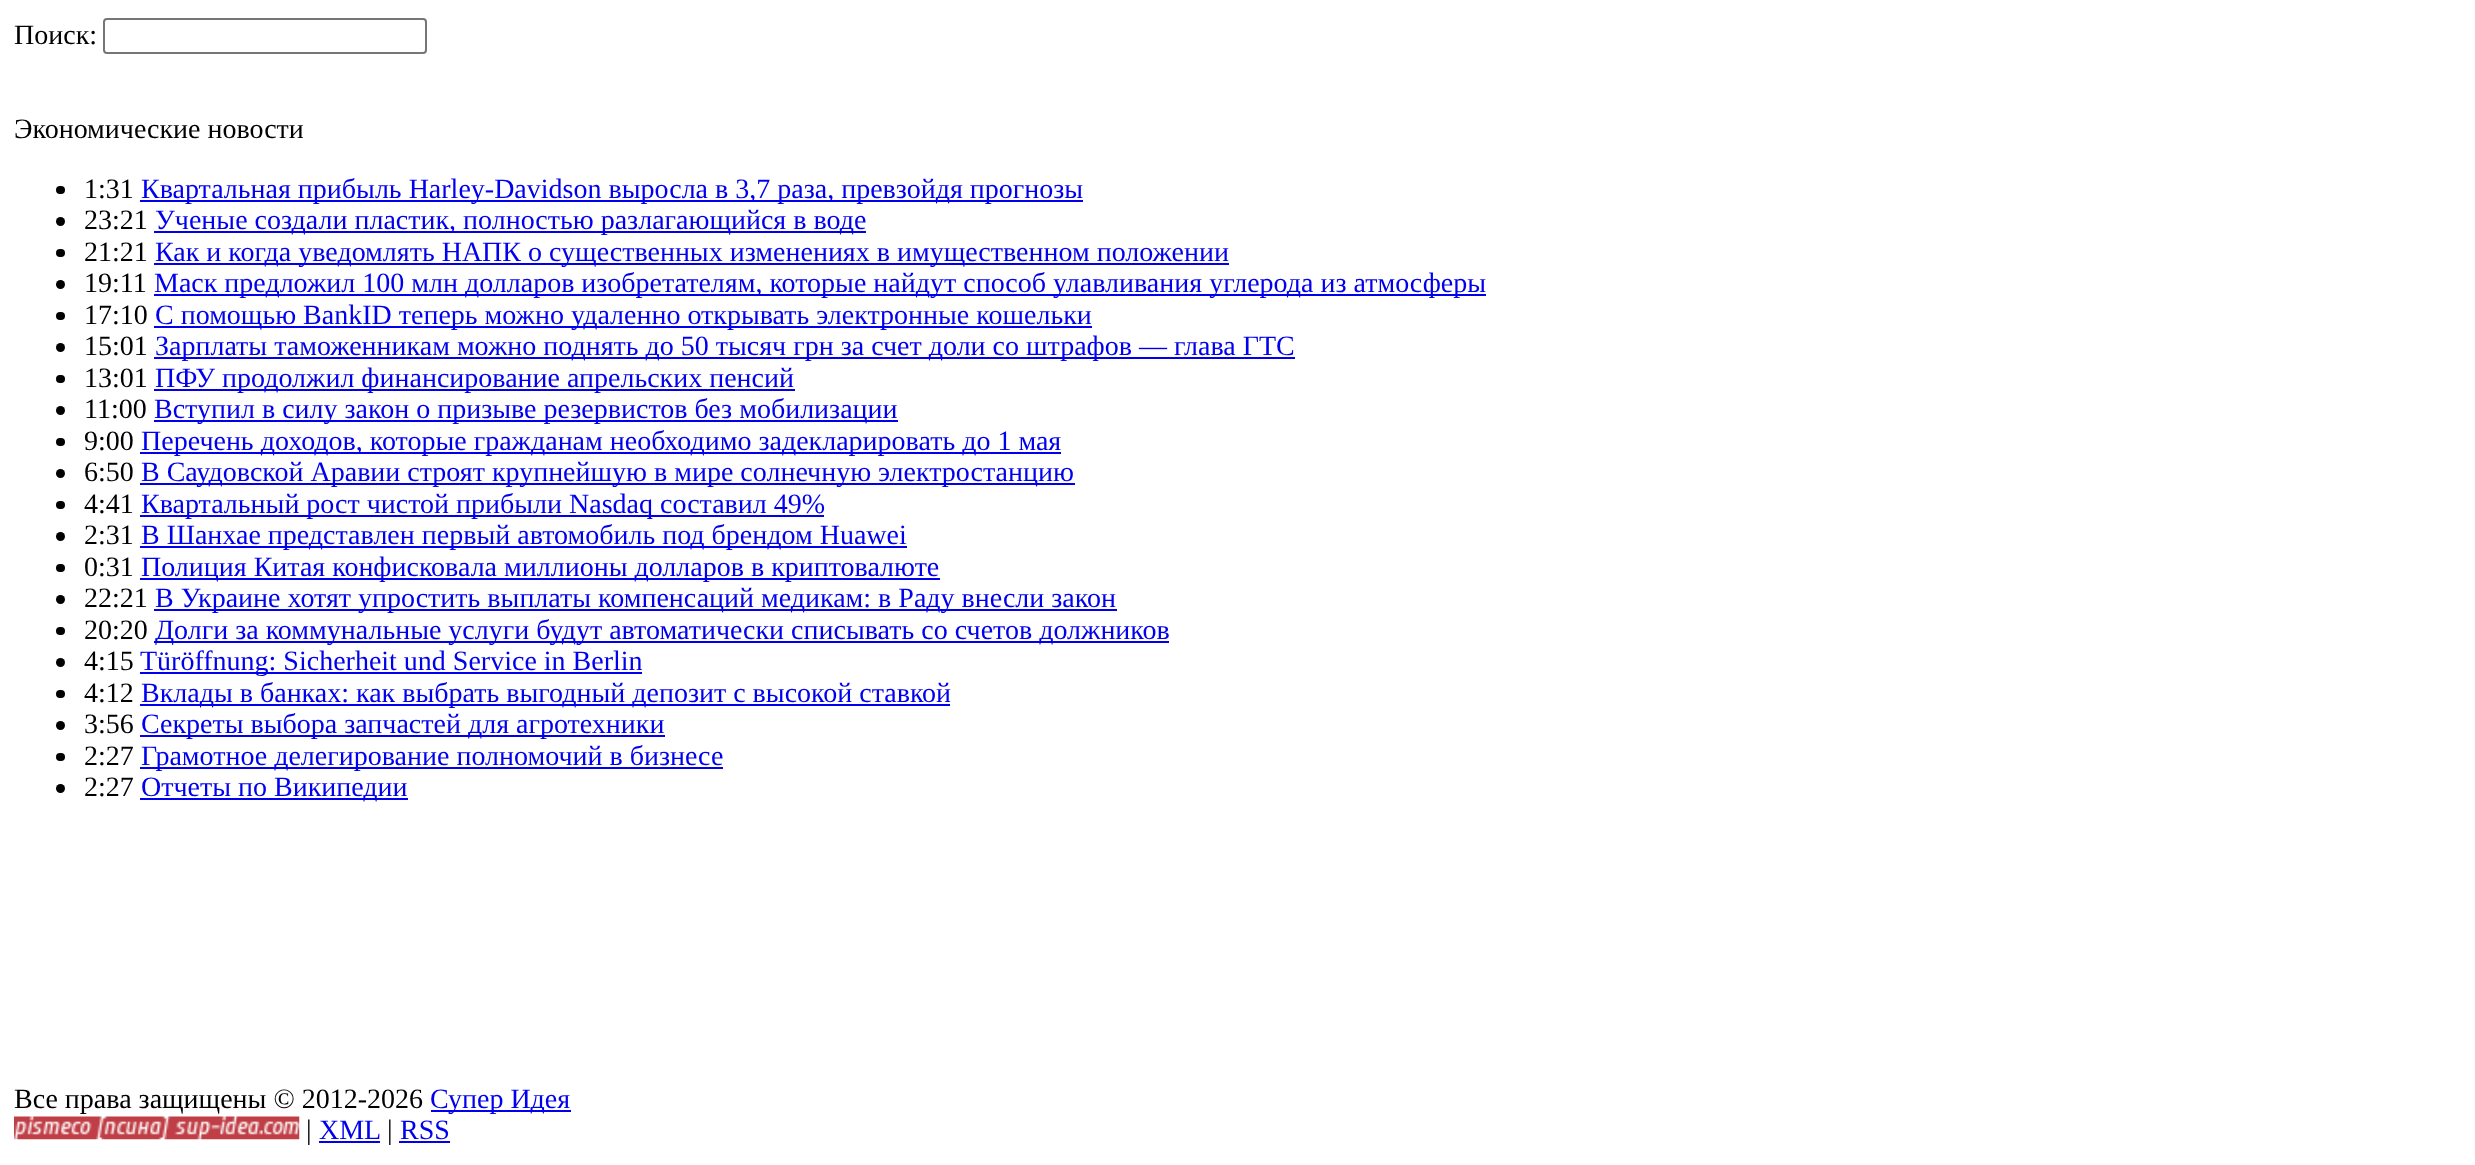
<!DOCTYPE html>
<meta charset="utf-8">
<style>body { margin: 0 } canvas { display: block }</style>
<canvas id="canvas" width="2475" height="1165"></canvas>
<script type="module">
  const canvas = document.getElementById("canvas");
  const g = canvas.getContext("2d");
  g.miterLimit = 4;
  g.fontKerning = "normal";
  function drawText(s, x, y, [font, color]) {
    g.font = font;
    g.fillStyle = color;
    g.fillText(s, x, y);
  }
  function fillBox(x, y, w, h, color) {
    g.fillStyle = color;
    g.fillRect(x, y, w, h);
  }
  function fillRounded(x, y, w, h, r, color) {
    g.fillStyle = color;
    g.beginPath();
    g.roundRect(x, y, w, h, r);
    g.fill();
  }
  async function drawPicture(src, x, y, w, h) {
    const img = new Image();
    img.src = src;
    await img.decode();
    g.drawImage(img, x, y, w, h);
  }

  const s1 = ["28px Liberation Serif", "#000000"];
  const s2 = ["28px Liberation Serif", "#0000EE"];

  fillBox(0, 0, 2475, 1165, "#FFFFFF");
  drawText("Поиск:", 14, 44, s1);
  g.beginPath();
  g.roundRect(104, 19, 322, 34, 3);
  g.strokeStyle = "#767676";
  g.lineWidth = 2;
  g.stroke();
  drawText("Экономические новости", 14, 138, s1);
  fillRounded(56, 186, 9, 8, 4, "#000000");
  drawText("1:31", 84, 198, s1);
  fillBox(140, 200, 943, 2, "#0000EE");
  drawText("Квартальная прибыль Harley-Davidson выросла в 3,7 раза, превзойдя прогнозы", 141, 198, s2);
  g.fillStyle = "#000000";
  g.beginPath();
  g.arc(60.5, 221.5, 4.5, 0, Math.PI * 2);
  g.fill();
  drawText("23:21", 84, 229, s1);
  fillBox(154, 231, 712, 2, "#0000EE");
  drawText("Ученые создали пластик, полностью разлагающийся в воде", 155, 229, s2);
  fillRounded(56, 249, 9, 8, 4, "#000000");
  drawText("21:21", 84, 261, s1);
  fillBox(154, 263, 1075, 2, "#0000EE");
  drawText("Как и когда уведомлять НАПК о существенных изменениях в имущественном положении", 155, 261, s2);
  g.fillStyle = "#000000";
  g.beginPath();
  g.arc(60.5, 284.5, 4.5, 0, Math.PI * 2);
  g.fill();
  drawText("19:11", 84, 292, s1);
  fillBox(154, 294, 1332, 2, "#0000EE");
  drawText("Маск предложил 100 млн долларов изобретателям, которые найдут способ улавливания углерода из атмосферы", 154, 292, s2);
  fillRounded(56, 312, 9, 8, 4, "#000000");
  drawText("17:10", 84, 324, s1);
  fillBox(154, 326, 938, 2, "#0000EE");
  drawText("С помощью BankID теперь можно удаленно открывать электронные кошельки", 155, 324, s2);
  g.fillStyle = "#000000";
  g.beginPath();
  g.arc(60.5, 347.5, 4.5, 0, Math.PI * 2);
  g.fill();
  drawText("15:01", 84, 355, s1);
  fillBox(154, 357, 1141, 2, "#0000EE");
  drawText("Зарплаты таможенникам можно поднять до 50 тысяч грн за счет доли со штрафов — глава ГТС", 155, 355, s2);
  fillRounded(56, 375, 9, 8, 4, "#000000");
  drawText("13:01", 84, 387, s1);
  fillBox(154, 389, 641, 2, "#0000EE");
  drawText("ПФУ продолжил финансирование апрельских пенсий", 155, 387, s2);
  g.fillStyle = "#000000";
  g.beginPath();
  g.arc(60.5, 410.5, 4.5, 0, Math.PI * 2);
  g.fill();
  drawText("11:00", 84, 418, s1);
  fillBox(154, 420, 744, 2, "#0000EE");
  drawText("Вступил в силу закон о призыве резервистов без мобилизации", 154, 418, s2);
  fillRounded(56, 438, 9, 8, 4, "#000000");
  drawText("9:00", 84, 450, s1);
  fillBox(140, 452, 921, 2, "#0000EE");
  drawText("Перечень доходов, которые гражданам необходимо задекларировать до 1 мая", 141, 450, s2);
  g.fillStyle = "#000000";
  g.beginPath();
  g.arc(60.5, 473.5, 4.5, 0, Math.PI * 2);
  g.fill();
  drawText("6:50", 84, 481, s1);
  fillBox(140, 483, 935, 2, "#0000EE");
  drawText("В Саудовской Аравии строят крупнейшую в мире солнечную электростанцию", 141, 481, s2);
  fillRounded(56, 501, 9, 8, 4, "#000000");
  drawText("4:41", 84, 513, s1);
  fillBox(140, 515, 684, 2, "#0000EE");
  drawText("Квартальный рост чистой прибыли Nasdaq составил 49%", 141, 513, s2);
  g.fillStyle = "#000000";
  g.beginPath();
  g.arc(60.5, 536.5, 4.5, 0, Math.PI * 2);
  g.fill();
  drawText("2:31", 84, 544, s1);
  fillBox(140, 546, 767, 2, "#0000EE");
  drawText("В Шанхае представлен первый автомобиль под брендом Huawei", 141, 544, s2);
  fillRounded(56, 564, 9, 8, 4, "#000000");
  drawText("0:31", 84, 576, s1);
  fillBox(140, 578, 800, 2, "#0000EE");
  drawText("Полиция Китая конфисковала миллионы долларов в криптовалюте", 141, 576, s2);
  g.fillStyle = "#000000";
  g.beginPath();
  g.arc(60.5, 599.5, 4.5, 0, Math.PI * 2);
  g.fill();
  drawText("22:21", 84, 607, s1);
  fillBox(154, 609, 963, 2, "#0000EE");
  drawText("В Украине хотят упростить выплаты компенсаций медикам: в Раду внесли закон", 155, 607, s2);
  fillRounded(56, 627, 9, 8, 4, "#000000");
  drawText("20:20", 84, 639, s1);
  fillBox(154, 641, 1015, 2, "#0000EE");
  drawText("Долги за коммунальные услуги будут автоматически списывать со счетов должников", 155, 639, s2);
  g.fillStyle = "#000000";
  g.beginPath();
  g.arc(60.5, 662.5, 4.5, 0, Math.PI * 2);
  g.fill();
  drawText("4:15", 84, 670, s1);
  fillBox(140, 672, 502, 2, "#0000EE");
  drawText("Türöffnung: Sicherheit und Service in Berlin", 140, 670, s2);
  fillRounded(56, 690, 9, 8, 4, "#000000");
  drawText("4:12", 84, 702, s1);
  fillBox(140, 704, 810, 2, "#0000EE");
  drawText("Вклады в банках: как выбрать выгодный депозит с высокой ставкой", 141, 702, s2);
  g.fillStyle = "#000000";
  g.beginPath();
  g.arc(60.5, 725.5, 4.5, 0, Math.PI * 2);
  g.fill();
  drawText("3:56", 84, 733, s1);
  fillBox(140, 735, 525, 2, "#0000EE");
  drawText("Секреты выбора запчастей для агротехники", 141, 733, s2);
  fillRounded(56, 753, 9, 8, 4, "#000000");
  drawText("2:27", 84, 765, s1);
  fillBox(140, 767, 583, 2, "#0000EE");
  drawText("Грамотное делегирование полномочий в бизнесе", 141, 765, s2);
  g.fillStyle = "#000000";
  g.beginPath();
  g.arc(60.5, 788.5, 4.5, 0, Math.PI * 2);
  g.fill();
  drawText("2:27", 84, 796, s1);
  fillBox(140, 798, 268, 2, "#0000EE");
  drawText("Отчеты по Википедии", 141, 796, s2);
  drawText("Все права защищены © 2012-2026", 14, 1108, s1);
  fillBox(431, 1110, 140, 2, "#0000EE");
  drawText("Супер Идея", 430, 1108, s2);
  await drawPicture("pic1.png", 14, 1116, 286, 24);
  drawText("|", 306, 1139, s1);
  drawText("XML", 319, 1139, s2);
  fillBox(319, 1141, 61, 2, "#0000EE");
  drawText("|", 387, 1139, s1);
  drawText("RSS", 400, 1139, s2);
  fillBox(399, 1141, 51, 2, "#0000EE");
</script>
